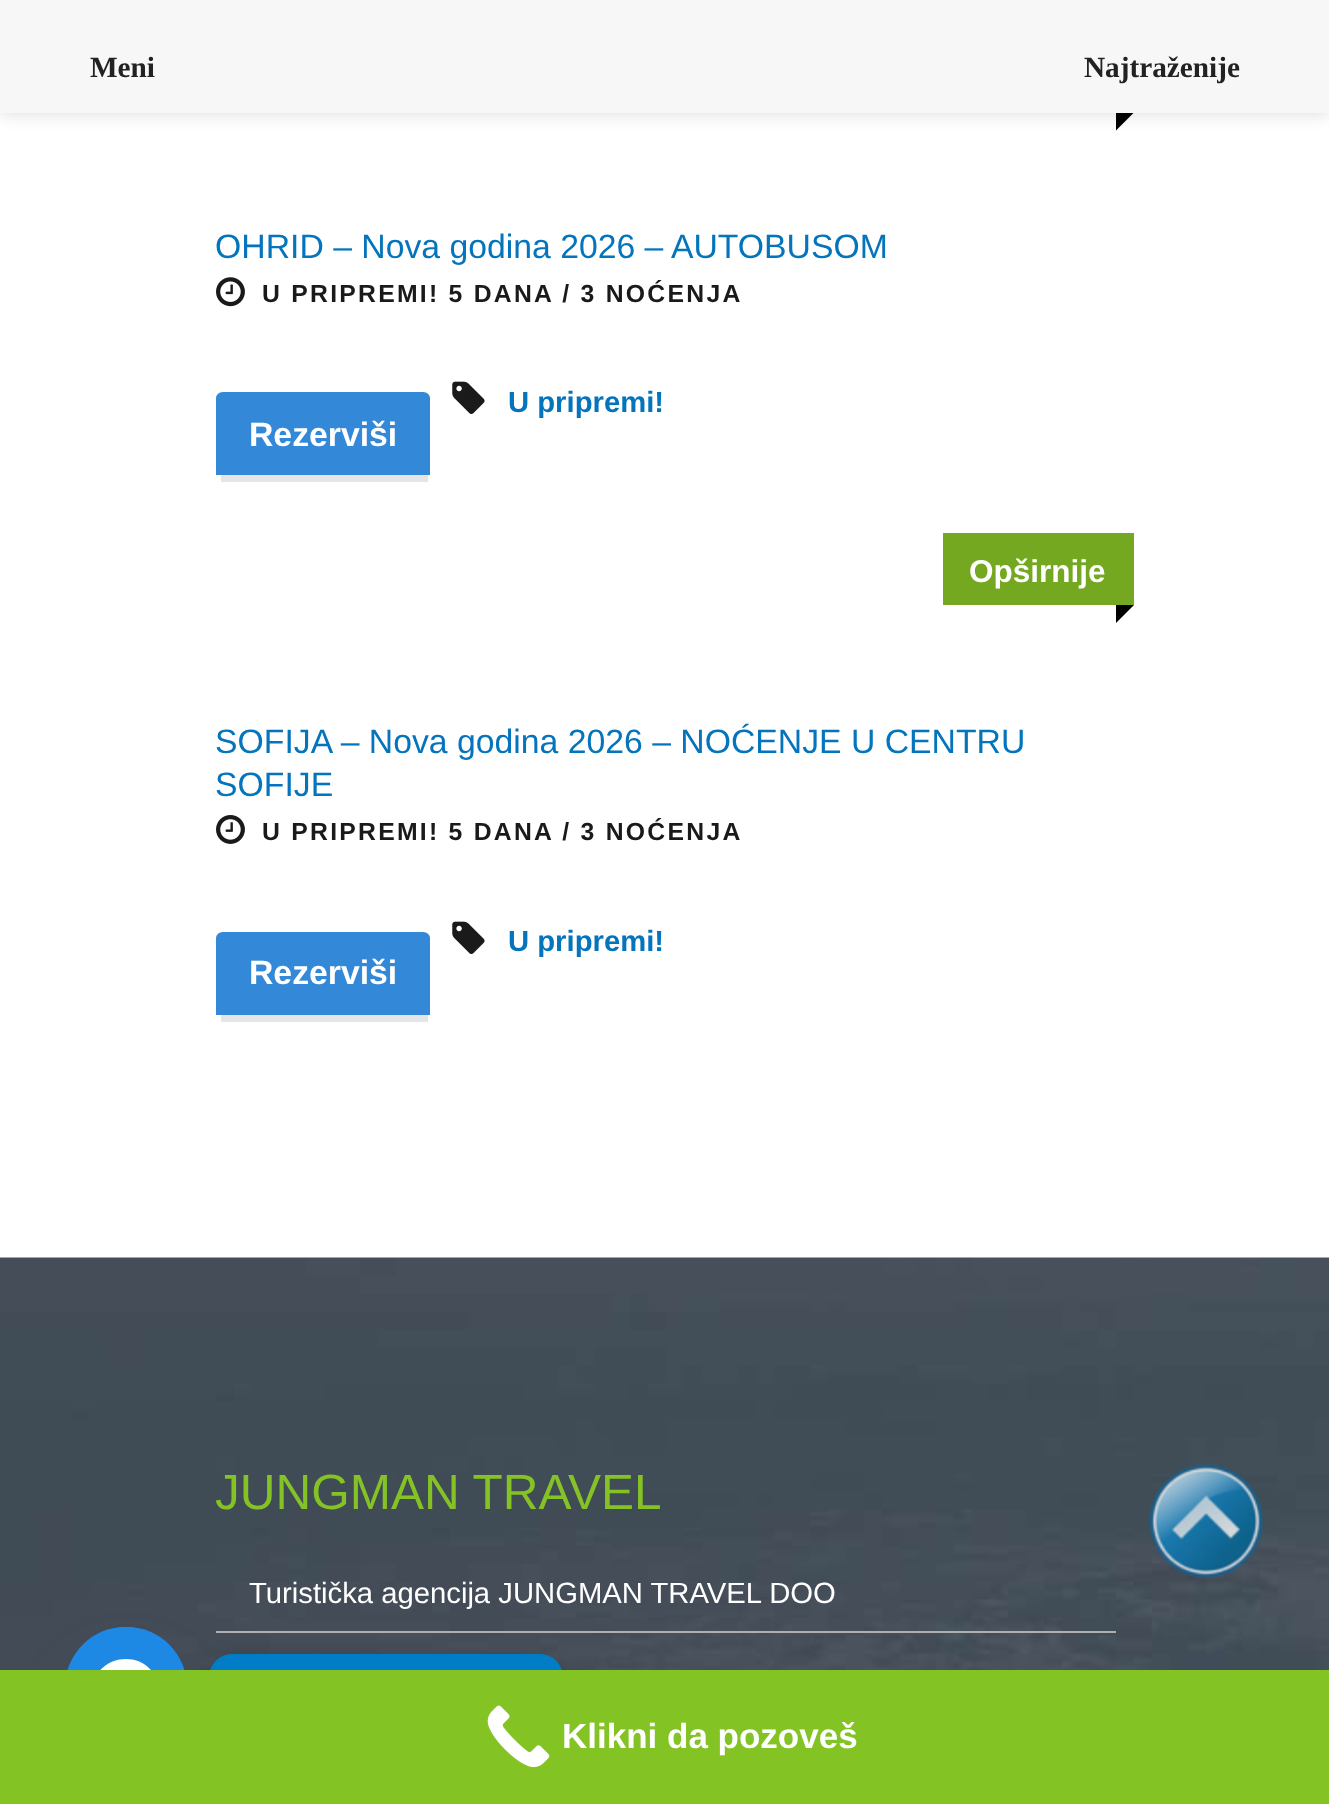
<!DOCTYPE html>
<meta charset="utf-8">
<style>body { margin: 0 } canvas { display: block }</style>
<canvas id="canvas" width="1329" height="1804"></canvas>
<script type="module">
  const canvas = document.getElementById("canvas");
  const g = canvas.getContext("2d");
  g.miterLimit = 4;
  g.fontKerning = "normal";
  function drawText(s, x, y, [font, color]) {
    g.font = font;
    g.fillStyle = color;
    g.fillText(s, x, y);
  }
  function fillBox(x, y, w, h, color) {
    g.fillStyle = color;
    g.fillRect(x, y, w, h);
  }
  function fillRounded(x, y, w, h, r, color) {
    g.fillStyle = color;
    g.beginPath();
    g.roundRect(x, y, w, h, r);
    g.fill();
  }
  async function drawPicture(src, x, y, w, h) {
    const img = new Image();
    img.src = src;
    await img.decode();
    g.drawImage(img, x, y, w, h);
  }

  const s1 = ["bold 29.25px Liberation Serif", "#222222"];
  const s2 = ["33.75px Liberation Sans", "#0474BC"];
  const s3 = ["bold 24.75px Liberation Sans", "#1A1A1A"];
  const s4 = ["bold 29.25px Liberation Sans", "#0474BC"];
  const s5 = ["bold 33.75px Liberation Sans", "#FFFFFF"];
  const s6 = ["bold 31.5px Liberation Sans", "#FFFFFF"];
  const s7 = ["49.5px Liberation Sans", "#85C226"];
  const s8 = ["29.25px Liberation Sans", "#FFFFFF"];
  const s9 = ["bold 35px Liberation Sans", "#FFFFFF"];

  fillBox(0, 0, 1329, 1804, "#FFFFFF");
  g.fillStyle = "#000000";
  g.beginPath();
  g.moveTo(1116, 112.5);
  g.lineTo(1134, 112.5);
  g.lineTo(1116, 130.5);
  g.closePath();
  g.fill();
  g.fillStyle = "rgba(0, 0, 0, 0.15)";
  g.filter = "blur(9px)";
  g.beginPath();
  g.rect(0, 0, 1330, 113);
  g.fill();
  g.filter = "none";
  fillBox(0, 0, 1329, 113, "#F7F7F7");
  drawText("Meni", 90, 77, s1);
  drawText("Najtraženije", 1084, 77, s1);
  drawText("OHRID – Nova godina 2026 – AUTOBUSOM", 215, 258, s2);
  await drawPicture("pic1.png", 216, 277, 29, 30);
  g.letterSpacing = "2.25px";
  drawText("U PRIPREMI! 5 DANA / 3 NOĆENJA", 262, 302, s3);
  await drawPicture("pic2.png", 452, 381, 33, 33);
  g.letterSpacing = "0px";
  drawText("U pripremi!", 508, 412, s4);
  g.fillStyle = "#3389D7";
  g.beginPath();
  g.moveTo(223, 392);
  g.lineTo(423, 392);
  g.bezierCurveTo(427, 392, 430, 395, 430, 398);
  g.lineTo(430, 475);
  g.lineTo(216, 475);
  g.lineTo(216, 398);
  g.bezierCurveTo(216, 395, 219, 392, 223, 392);
  g.closePath();
  g.fill();
  fillBox(221, 475, 207, 7, "#E5E5E5");
  drawText("Rezerviši", 249, 446, s5);
  fillBox(943, 533, 191, 72, "#74A821");
  drawText("Opširnije", 969, 582, s6);
  g.fillStyle = "#000000";
  g.beginPath();
  g.moveTo(1116, 605);
  g.lineTo(1134, 605);
  g.lineTo(1116, 623);
  g.closePath();
  g.fill();
  drawText("SOFIJA – Nova godina 2026 – NOĆENJE U CENTRU", 215, 753, s2);
  drawText("SOFIJE", 215, 796, s2);
  await drawPicture("pic3.png", 216, 815, 29, 29);
  g.letterSpacing = "2.25px";
  drawText("U PRIPREMI! 5 DANA / 3 NOĆENJA", 262, 840, s3);
  await drawPicture("pic2.png", 452, 921, 33, 33);
  g.letterSpacing = "0px";
  drawText("U pripremi!", 508, 951, s4);
  g.fillStyle = "#3389D7";
  g.beginPath();
  g.moveTo(223, 932);
  g.lineTo(423, 932);
  g.bezierCurveTo(427, 932, 430, 935, 430, 938);
  g.lineTo(430, 1015);
  g.lineTo(216, 1015);
  g.lineTo(216, 938);
  g.bezierCurveTo(216, 935, 219, 932, 223, 932);
  g.closePath();
  g.fill();
  fillBox(221, 1015, 207, 7, "#E5E5E5");
  drawText("Rezerviši", 249, 984, s5);
  await drawPicture("pic4.png", 0, 1257, 1329, 413);
  drawText("JUNGMAN TRAVEL", 215, 1509, s7);
  fillBox(216, 1631, 900, 2, "#B0AEAE");
  drawText("Turistička agencija JUNGMAN TRAVEL DOO", 249, 1603, s8);
  await drawPicture("pic5.png", 1149, 1464, 114, 114);
  g.fillStyle = "rgba(73, 104, 126, 0.16)";
  g.filter = "blur(27px)";
  g.beginPath();
  g.roundRect(65, 1663, 122, 121, 60.5);
  g.fill();
  g.filter = "none";
  fillRounded(65, 1627, 122, 121, 60.5, "#1E88E5");
  g.beginPath();
  g.arc(126, 1687.5, 60.5, 0, Math.PI * 2);
  g.fill();
  g.fillStyle = "#FFFFFF";
  g.beginPath();
  g.moveTo(93, 1689);
  g.bezierCurveTo(93, 1672, 108, 1659, 126, 1659);
  g.bezierCurveTo(144, 1659, 158, 1672, 158, 1689);
  g.bezierCurveTo(158, 1706, 144, 1719, 126, 1719);
  g.bezierCurveTo(123, 1719, 119, 1719, 116, 1718);
  g.lineTo(106, 1724);
  g.lineTo(106, 1712);
  g.bezierCurveTo(98, 1707, 93, 1698, 93, 1689);
  g.closePath();
  g.moveTo(121, 1691);
  g.lineTo(129, 1699);
  g.lineTo(147, 1680);
  g.lineTo(131, 1689);
  g.lineTo(123, 1680);
  g.lineTo(105, 1699);
  g.closePath();
  g.fill("evenodd");
  g.fillStyle = "rgba(0, 0, 0, 0.15)";
  g.filter = "blur(8.5px)";
  g.beginPath();
  g.roundRect(209, 1656, 354, 70, 23);
  g.fill();
  g.filter = "none";
  fillRounded(209, 1654, 354, 70, 23, "#007DC6");
  fillBox(0, 1670, 1329, 134, "#84C324");
  await drawPicture("pic6.png", 487, 1705, 63, 63);
  drawText("Klikni da pozoveš", 562, 1748, s9);
</script>
